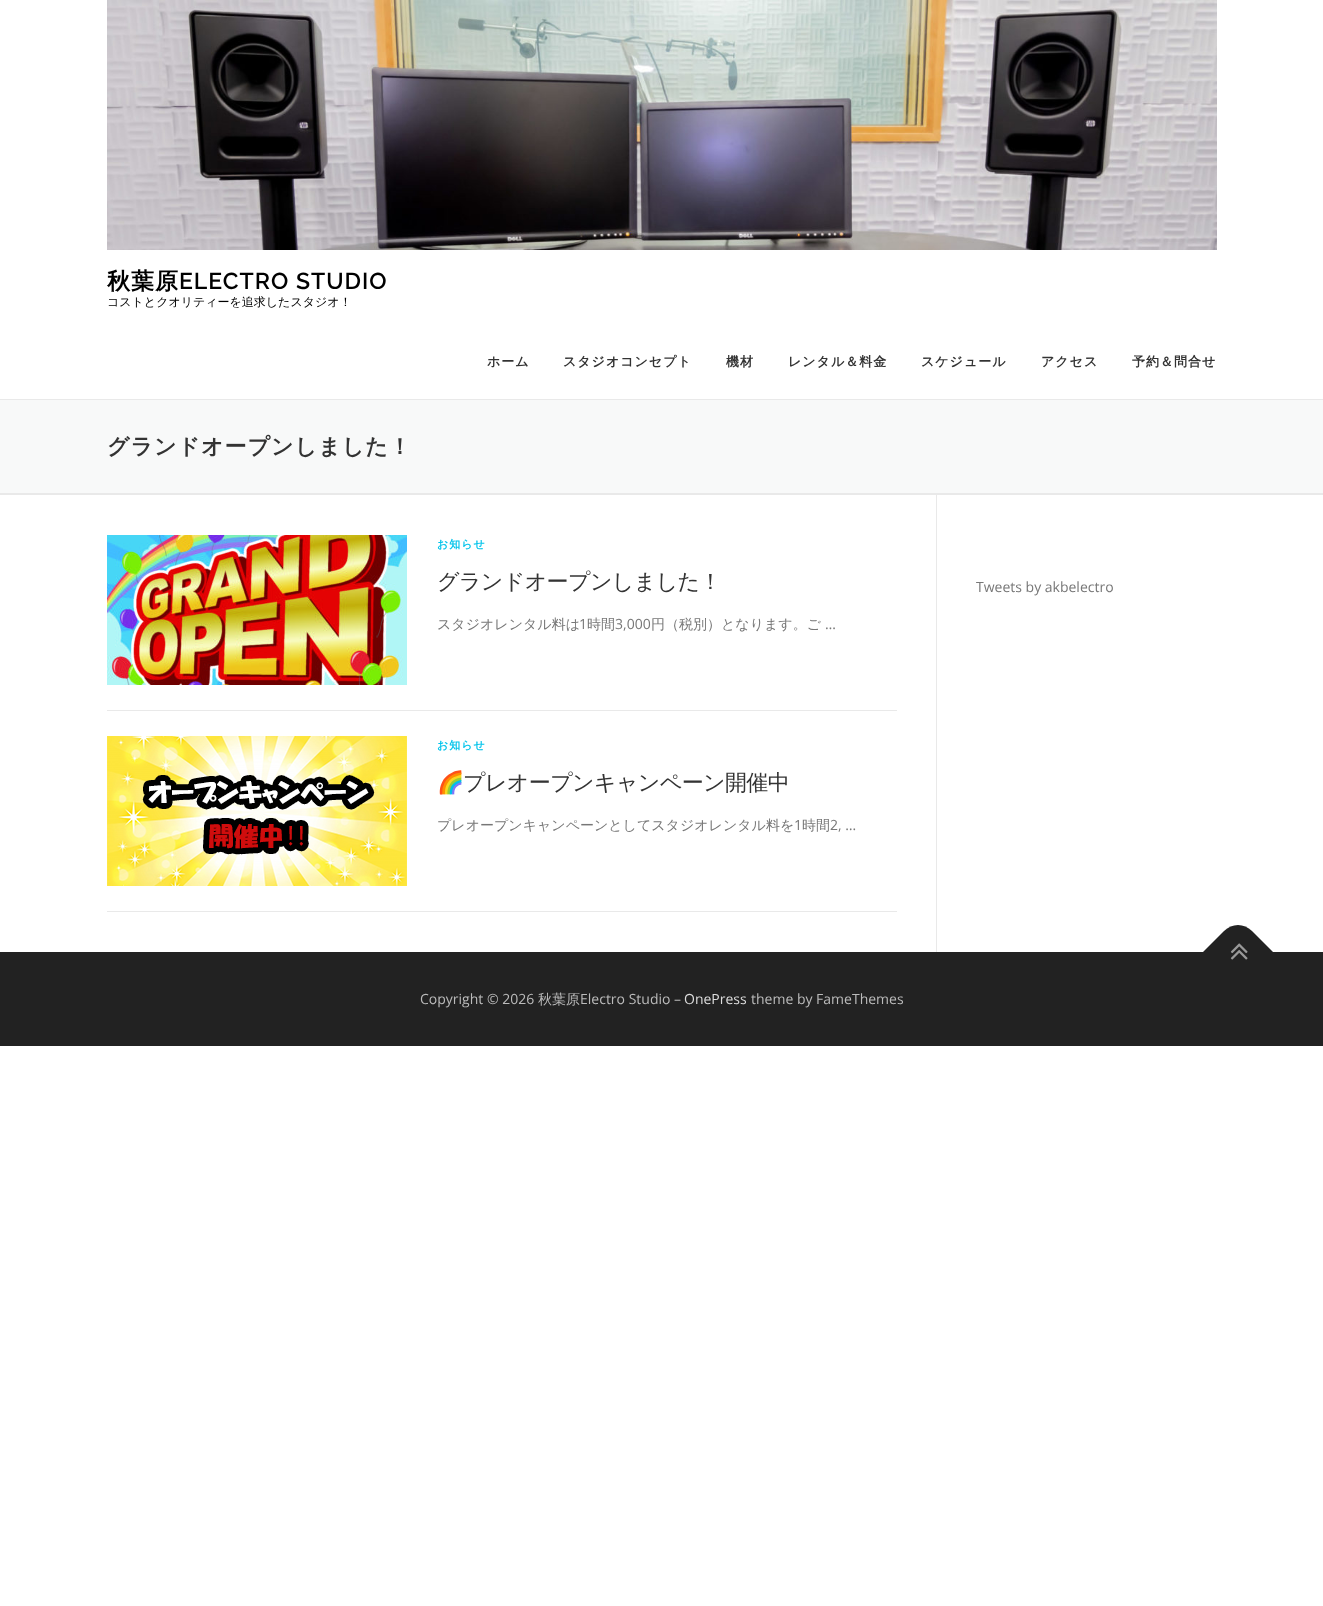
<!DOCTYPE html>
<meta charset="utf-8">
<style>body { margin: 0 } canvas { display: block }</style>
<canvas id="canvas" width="1323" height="1606"></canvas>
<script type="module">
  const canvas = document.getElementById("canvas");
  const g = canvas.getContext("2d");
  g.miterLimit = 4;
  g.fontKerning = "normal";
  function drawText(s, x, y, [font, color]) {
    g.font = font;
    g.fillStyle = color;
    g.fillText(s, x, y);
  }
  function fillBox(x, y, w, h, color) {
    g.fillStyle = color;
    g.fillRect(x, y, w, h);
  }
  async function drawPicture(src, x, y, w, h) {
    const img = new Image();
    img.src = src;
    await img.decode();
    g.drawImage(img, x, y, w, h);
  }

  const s1 = ["bold 23px WenQuanYi Zen Hei", "#000000"];
  const s2 = ["600 23px Raleway", "#000000"];
  const s3 = ["500 12px WenQuanYi Zen Hei", "#000000"];
  const s4 = ["bold 13px WenQuanYi Zen Hei", "#333333"];
  const s5 = ["bold 22px WenQuanYi Zen Hei", "#333333"];
  const s6 = ["bold 11px WenQuanYi Zen Hei", "#03C4EB"];
  const s7 = ["500 22px WenQuanYi Zen Hei", "#333333"];
  const s8 = ["500 14px WenQuanYi Zen Hei", "#777777"];
  const s9 = ["14px Open Sans", "#777777"];
  const s10 = ["22px Noto Color Emoji", "#333333"];
  const s11 = ["14px Open Sans", "#BBBBBB"];
  const s12 = ["500 14px WenQuanYi Zen Hei", "#BBBBBB"];
  const s13 = ["14px Open Sans", "#DDDDDD"];

  fillBox(0, 0, 1323, 1606, "#FFFFFF");
  await drawPicture("pic1.png", 107, 0, 1110, 250);
  g.letterSpacing = "1px";
  drawText("秋葉原", 107, 289, s1);
  drawText("ELECTRO STUDIO", 179, 289, s2);
  g.letterSpacing = "0px";
  drawText("コストとクオリティーを追求したスタジオ！", 107, 306, s3);
  g.letterSpacing = "1px";
  drawText("ホーム", 487, 366, s4);
  drawText("スタジオコンセプト", 563, 366, s4);
  drawText("機材", 726, 366, s4);
  drawText("レンタル＆料金", 788, 366, s4);
  drawText("スケジュール", 921, 366, s4);
  drawText("アクセス", 1041, 366, s4);
  drawText("予約＆問合せ", 1132, 366, s4);
  fillBox(0, 400, 1323, 93, "#F8F9F9");
  fillBox(0, 399, 1323, 1, "#E9E9E9");
  drawText("グランドオープンしました！", 107, 454, s5);
  fillBox(0, 493, 1323, 2, "#E9E9E9");
  fillBox(936, 495, 1, 457, "#E9E9E9");
  await drawPicture("pic2.png", 107, 535, 300, 150);
  drawText("お知らせ", 437, 548, s6);
  g.letterSpacing = "-0.6px";
  drawText("グランドオープンしました！", 437, 589, s7);
  g.letterSpacing = "0px";
  drawText("スタジオレンタル料は", 437, 629, s8);
  drawText("1", 579, 629, s9);
  drawText("時間", 587, 629, s8);
  drawText("3,000", 615, 629, s9);
  drawText("円（税別）となります。ご", 651, 629, s8);
  drawText("…", 825, 629, s9);
  fillBox(107, 710, 790, 1, "#E9E9E9");
  fillBox(107, 911, 790, 1, "#E9E9E9");
  await drawPicture("pic3.png", 107, 736, 300, 150);
  g.letterSpacing = "1px";
  drawText("お知らせ", 437, 749, s6);
  g.save();
  g.beginPath();
  g.rect(437, 736, 460, 101);
  g.clip();
  g.letterSpacing = "-0.6px";
  drawText("🌈", 437, 790, s10);
  g.restore();
  g.letterSpacing = "-0.6px";
  drawText("プレオープンキャンペーン開催中", 463, 790, s7);
  g.letterSpacing = "0px";
  drawText("プレオープンキャンペーンとしてスタジオレンタル料を", 437, 830, s8);
  drawText("1", 794, 830, s9);
  drawText("時間", 802, 830, s8);
  drawText("2, …", 830, 830, s9);
  drawText("Tweets by akbelectro", 976, 592, s9);
  fillBox(0, 952, 1323, 94, "#222222");
  g.beginPath();
  g.moveTo(1203, 952);
  g.lineTo(1224, 931);
  g.bezierCurveTo(1232, 923, 1244, 923, 1252, 931);
  g.lineTo(1273, 952);
  g.lineTo(1238, 987);
  g.closePath();
  g.fill();
  await drawPicture("pic4.png", 1230, 943, 18, 17);
  drawText("Copyright © 2026", 420, 1004, s11);
  drawText("秋葉原", 538, 1004, s12);
  drawText("Electro Studio –", 580, 1004, s11);
  drawText("OnePress", 684, 1004, s13);
  drawText("theme by FameThemes", 751, 1004, s11);
</script>
